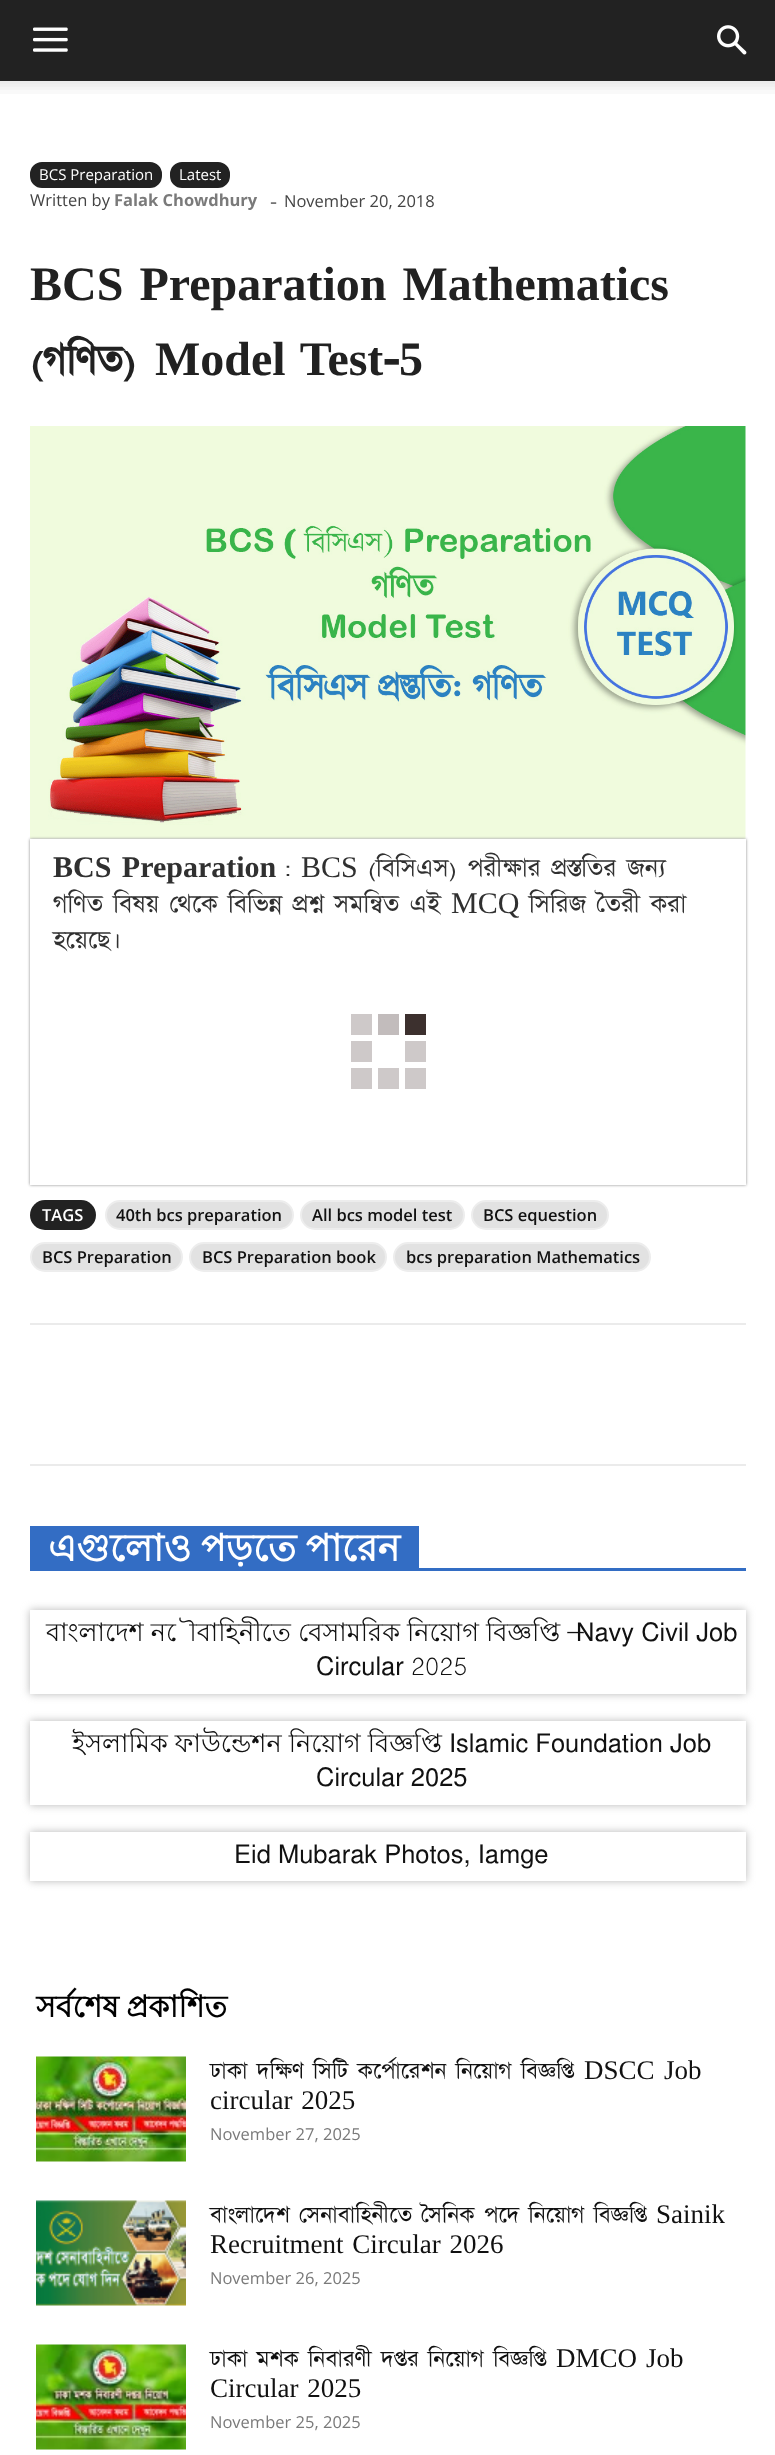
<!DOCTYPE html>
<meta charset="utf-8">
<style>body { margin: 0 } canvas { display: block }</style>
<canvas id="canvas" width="775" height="2455"></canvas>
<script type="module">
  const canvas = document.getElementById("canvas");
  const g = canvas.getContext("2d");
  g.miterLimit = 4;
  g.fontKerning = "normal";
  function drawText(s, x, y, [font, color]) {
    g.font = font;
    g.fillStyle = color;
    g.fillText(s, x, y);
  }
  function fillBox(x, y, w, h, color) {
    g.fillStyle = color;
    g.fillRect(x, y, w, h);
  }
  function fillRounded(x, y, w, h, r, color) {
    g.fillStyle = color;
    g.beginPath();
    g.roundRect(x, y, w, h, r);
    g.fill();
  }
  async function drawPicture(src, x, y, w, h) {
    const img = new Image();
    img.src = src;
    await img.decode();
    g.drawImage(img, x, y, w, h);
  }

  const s1 = ["15px Open Sans", "#FFFFFF"];
  const s2 = ["16.5px Open Sans", "#444444"];
  const s3 = ["bold 16.5px Open Sans", "#7A7A7A"];
  const s4 = ["22px Open Sans", "#666666"];
  const s5 = ["bold 48px Liberation Serif", "#212121"];
  const s6 = ["bold 48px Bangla", "#212121"];
  const s7 = ["bold 30px Liberation Serif", "#303030"];
  const s8 = ["500 30px Bangla", "#303030"];
  const s9 = ["30px Liberation Serif", "#303030"];
  const s10 = ["600 16.5px Open Sans", "#FFFFFF"];
  const s11 = ["600 16.5px Open Sans", "#111111"];
  const s12 = ["bold 37.5px Lohit Bengali", "#FFFFFF"];
  const s13 = ["25.5px Lohit Bengali", "#111111"];
  const s14 = ["25.5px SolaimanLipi", "#111111"];
  const s15 = ["bold 30px Lohit Bengali", "#000000"];
  const s16 = ["500 27px Bangla", "#111111"];
  const s17 = ["27px Liberation Serif", "#111111"];
  const s18 = ["16.5px Open Sans", "#7A7A7A"];

  fillBox(0, 0, 775, 2455, "#FFFFFF");
  fillBox(0, 0, 775, 81, "#222222");
  await drawPicture("pic1.png", 33, 27, 35, 25);
  await drawPicture("pic2.png", 717, 25, 30, 30);
  await drawPicture("pic3.png", 0, 81, 775, 13);
  g.beginPath();
  g.roundRect(31, 163, 130, 24, 11);
  g.fill();
  g.strokeStyle = "#222222";
  g.lineWidth = 2;
  g.stroke();
  drawText("BCS Preparation", 39, 180, s1);
  g.fillStyle = "#222222";
  g.beginPath();
  g.roundRect(171, 163, 58, 24, 11);
  g.fill();
  g.stroke();
  drawText("Latest", 179, 180, s1);
  drawText("Written by", 30, 206, s2);
  drawText("Falak Chowdhury", 114, 206, s3);
  drawText("-", 270, 209, s4);
  drawText("November 20, 2018", 284, 207, s2);
  g.wordSpacing = "4px";
  drawText("BCS Preparation Mathematics", 30, 300, s5);
  g.wordSpacing = "0px";
  drawText("(গণিত)", 30, 375, s6);
  g.wordSpacing = "3px";
  drawText("Model Test", 155, 375, s5);
  g.wordSpacing = "0px";
  drawText("-", 383, 375, s6);
  drawText("5", 399, 375, s5);
  await drawPicture("pic4.png", 30, 426, 716, 413);
  g.save();
  g.beginPath();
  g.moveTo(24, 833);
  g.lineTo(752, 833);
  g.lineTo(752, 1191);
  g.lineTo(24, 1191);
  g.closePath();
  g.moveTo(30, 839);
  g.lineTo(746, 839);
  g.lineTo(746, 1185);
  g.lineTo(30, 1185);
  g.closePath();
  g.clip("evenodd");
  g.fillStyle = "#888888";
  g.filter = "blur(1.5px)";
  g.beginPath();
  g.rect(30, 839, 716, 346);
  g.fill();
  g.filter = "none";
  g.restore();
  g.wordSpacing = "3px";
  drawText("BCS Preparation", 53, 877, s7);
  g.wordSpacing = "0px";
  drawText(":", 284, 877, s8);
  drawText("BCS", 301, 877, s9);
  g.wordSpacing = "0.5px";
  drawText("(বিসিএস) পরীক্ষার প্রস্ততির জন্য", 368, 877, s8);
  g.wordSpacing = "0px";
  drawText("গণিত বিষয় থেকে বিভিন্ন প্রশ্ন সমন্বিত এই", 53, 913, s8);
  drawText("MCQ", 451, 913, s9);
  drawText("সিরিজ তৈরী করা", 529, 913, s8);
  drawText("হয়েছে।", 53, 949, s8);
  fillBox(351, 1014, 21, 21, "#CEC9C9");
  fillBox(378, 1014, 21, 21, "#C2BCBC");
  fillBox(405, 1014, 21, 21, "#3C302E");
  fillBox(351, 1041, 21, 21, "#CEC9C9");
  fillBox(405, 1041, 21, 21, "#CEC9C9");
  fillBox(351, 1068, 21, 21, "#CEC9C9");
  fillBox(378, 1068, 21, 21, "#CEC9C9");
  fillBox(405, 1068, 21, 21, "#CEC9C9");
  fillRounded(30, 1200, 66, 30, 15, "#222222");
  drawText("TAGS", 42, 1221, s10);
  g.fillStyle = "#E2E2E2";
  g.beginPath();
  g.roundRect(106, 1201, 187, 28, 14);
  g.fill();
  g.strokeStyle = "#EDEDED";
  g.stroke();
  drawText("40th bcs preparation", 116, 1221, s11);
  g.fillStyle = "#E2E2E2";
  g.beginPath();
  g.roundRect(301, 1201, 163, 28, 14);
  g.fill();
  g.stroke();
  drawText("All bcs model test", 312, 1221, s11);
  g.fillStyle = "#E2E2E2";
  g.beginPath();
  g.roundRect(472, 1201, 136, 28, 14);
  g.fill();
  g.stroke();
  drawText("BCS equestion", 483, 1221, s11);
  g.fillStyle = "#E2E2E2";
  g.beginPath();
  g.roundRect(31, 1243, 151, 28, 14);
  g.fill();
  g.stroke();
  drawText("BCS Preparation", 42, 1263, s11);
  g.fillStyle = "#E2E2E2";
  g.beginPath();
  g.roundRect(190, 1243, 196, 28, 14);
  g.fill();
  g.stroke();
  drawText("BCS Preparation book", 202, 1263, s11);
  g.fillStyle = "#E2E2E2";
  g.beginPath();
  g.roundRect(394, 1243, 256, 28, 14);
  g.fill();
  g.stroke();
  drawText("bcs preparation Mathematics", 406, 1263, s11);
  fillBox(30, 1323, 716, 2, "#EBEBEB");
  fillBox(30, 1464, 716, 2, "#EBEBEB");
  fillBox(30, 1568, 716, 3, "#336DC4");
  fillBox(30, 1526, 389, 42, "#336DC4");
  g.wordSpacing = "-1px";
  drawText("এগুলোও পড়তে পারেন", 48, 1561, s12);
  g.save();
  g.beginPath();
  g.moveTo(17, 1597);
  g.lineTo(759, 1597);
  g.lineTo(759, 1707);
  g.lineTo(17, 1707);
  g.closePath();
  g.moveTo(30, 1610);
  g.lineTo(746, 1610);
  g.lineTo(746, 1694);
  g.lineTo(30, 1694);
  g.closePath();
  g.clip("evenodd");
  g.fillStyle = "#B7B7B7";
  g.filter = "blur(4px)";
  g.beginPath();
  g.rect(30, 1610, 716, 84);
  g.fill();
  g.filter = "none";
  g.restore();
  g.wordSpacing = "0px";
  drawText("বাংলাদেশ নৌবাহিনীতে বেসামরিক নিয়োগ বিজ্ঞপ্তি –", 46, 1641, s13);
  drawText("Navy Civil Job", 576, 1641, s14);
  drawText("Circular", 316, 1675, s14);
  drawText("2025", 411, 1675, s13);
  g.save();
  g.beginPath();
  g.moveTo(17, 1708);
  g.lineTo(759, 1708);
  g.lineTo(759, 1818);
  g.lineTo(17, 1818);
  g.closePath();
  g.moveTo(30, 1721);
  g.lineTo(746, 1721);
  g.lineTo(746, 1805);
  g.lineTo(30, 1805);
  g.closePath();
  g.clip("evenodd");
  g.fillStyle = "#B7B7B7";
  g.filter = "blur(4px)";
  g.beginPath();
  g.rect(30, 1721, 716, 84);
  g.fill();
  g.filter = "none";
  g.restore();
  drawText("ইসলামিক ফাউন্ডেশন নিয়োগ বিজ্ঞপ্তি", 72, 1752, s13);
  drawText("Islamic Foundation Job", 449, 1752, s14);
  drawText("Circular 2025", 316, 1786, s14);
  g.save();
  g.beginPath();
  g.moveTo(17, 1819);
  g.lineTo(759, 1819);
  g.lineTo(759, 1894);
  g.lineTo(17, 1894);
  g.closePath();
  g.moveTo(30, 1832);
  g.lineTo(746, 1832);
  g.lineTo(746, 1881);
  g.lineTo(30, 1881);
  g.closePath();
  g.clip("evenodd");
  g.fillStyle = "#B7B7B7";
  g.filter = "blur(4px)";
  g.beginPath();
  g.rect(30, 1832, 716, 49);
  g.fill();
  g.filter = "none";
  g.restore();
  drawText("Eid Mubarak Photos, Iamge", 234, 1863, s14);
  g.wordSpacing = "-1px";
  drawText("সর্বশেষ প্রকাশিত", 36, 2017, s15);
  await drawPicture("pic5.png", 36, 2056, 150, 106);
  g.wordSpacing = "0px";
  drawText("ঢাকা দক্ষিণ সিটি কর্পোরেশন নিয়োগ বিজ্ঞপ্তি", 210, 2079, s16);
  drawText("DSCC", 584, 2079, s17);
  drawText("Job", 664, 2079, s17);
  g.wordSpacing = "2px";
  drawText("circular 2025", 210, 2109, s17);
  g.wordSpacing = "0px";
  drawText("November 27, 2025", 210, 2140, s18);
  await drawPicture("pic6.png", 36, 2200, 150, 106);
  drawText("বাংলাদেশ সেনাবাহিনীতে সৈনিক পদে নিয়োগ বিজ্ঞপ্তি", 210, 2223, s16);
  drawText("Sainik", 656, 2223, s17);
  g.wordSpacing = "2px";
  drawText("Recruitment Circular 2026", 210, 2253, s17);
  g.wordSpacing = "0px";
  drawText("November 26, 2025", 210, 2284, s18);
  await drawPicture("pic7.png", 36, 2344, 150, 106);
  drawText("ঢাকা মশক নিবারণী দপ্তর নিয়োগ বিজ্ঞপ্তি", 210, 2367, s16);
  drawText("DMCO", 556, 2367, s17);
  drawText("Job", 646, 2367, s17);
  g.wordSpacing = "2px";
  drawText("Circular 2025", 210, 2397, s17);
  g.wordSpacing = "0px";
  drawText("November 25, 2025", 210, 2428, s18);
</script>
